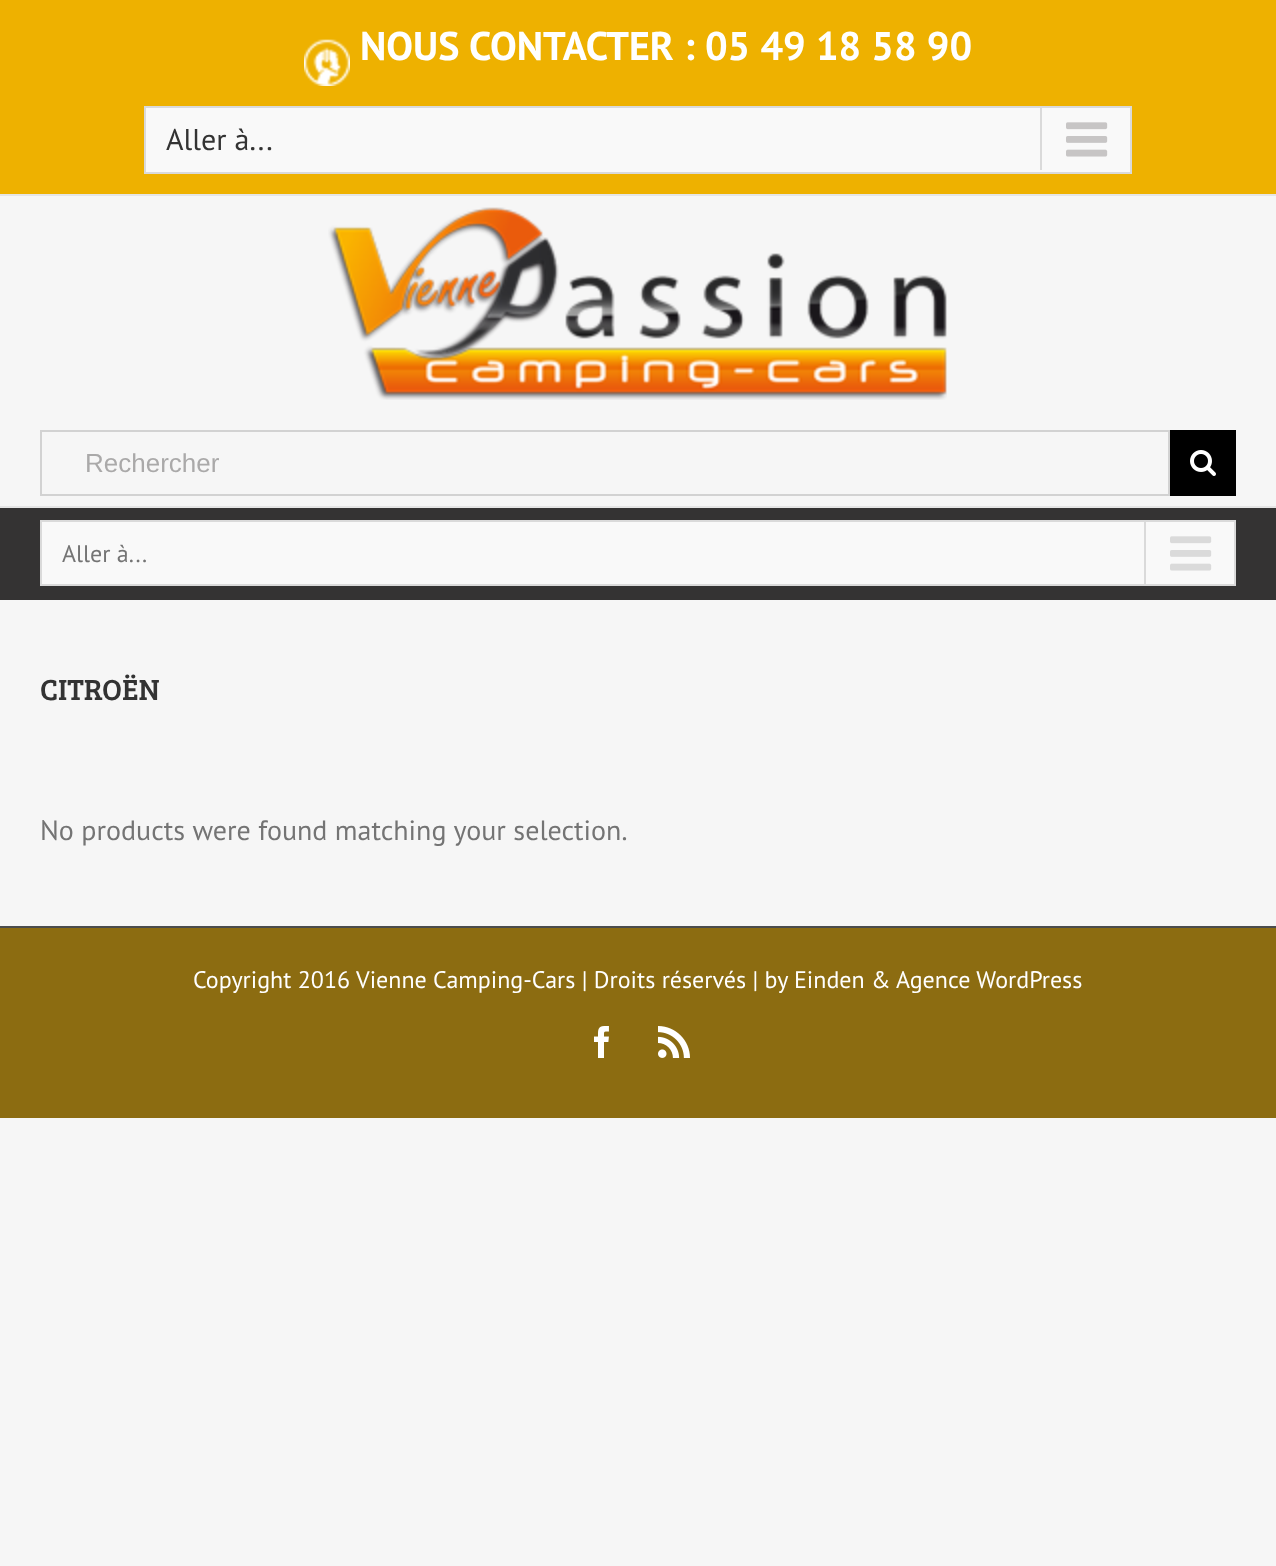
<!DOCTYPE html>
<meta charset="utf-8">
<style>body { margin: 0 } canvas { display: block }</style>
<canvas id="canvas" width="1276" height="1566"></canvas>
<script type="module">
  const canvas = document.getElementById("canvas");
  const g = canvas.getContext("2d");
  g.miterLimit = 4;
  g.fontKerning = "normal";
  function drawText(s, x, y, [font, color]) {
    g.font = font;
    g.fillStyle = color;
    g.fillText(s, x, y);
  }
  function fillBox(x, y, w, h, color) {
    g.fillStyle = color;
    g.fillRect(x, y, w, h);
  }
  async function drawPicture(src, x, y, w, h) {
    const img = new Image();
    img.src = src;
    await img.decode();
    g.drawImage(img, x, y, w, h);
  }

  const s1 = ["bold 40px PT Sans", "#FFFFFF"];
  const s2 = ["30px PT Sans", "#333333"];
  const s3 = ["26px Liberation Sans", "#AAA9A9"];
  const s4 = ["24px PT Sans", "#747474"];
  const s5 = ["30px Bree Serif", "#333333"];
  const s6 = ["28px PT Sans", "#747474"];
  const s7 = ["24px PT Sans", "#FFFFFF"];

  fillBox(0, 0, 1276, 1566, "#F6F6F6");
  fillBox(0, 0, 1276, 194, "#EEB100");
  fillBox(0, 194, 1276, 2, "#E5E5E5");
  await drawPicture("pic1.png", 304, 39, 46, 47);
  drawText("NOUS CONTACTER : 05 49 18 58 90", 360, 60, s1);
  g.fillStyle = "#F9F9F9";
  g.beginPath();
  g.rect(145, 107, 986, 66);
  g.fill();
  g.strokeStyle = "#DADADA";
  g.lineWidth = 2;
  g.stroke();
  drawText("Aller à...", 166, 150, s2);
  fillBox(1040, 108, 2, 62, "#DADADA");
  await drawPicture("pic2.png", 1066, 122, 42, 35);
  fillBox(0, 506, 1276, 2, "#E5E5E5");
  await drawPicture("pic3.png", 328, 207, 619, 193);
  g.strokeStyle = "#D2D2D2";
  g.strokeRect(41, 431, 1128, 64);
  drawText("Rechercher", 85, 472, s3);
  fillBox(1170, 430, 66, 66, "#000000");
  await drawPicture("pic4.png", 1190, 450, 26, 26);
  fillBox(0, 508, 1276, 92, "#343333");
  g.fillStyle = "#F9F9F9";
  g.beginPath();
  g.rect(41, 521, 1194, 64);
  g.fill();
  g.strokeStyle = "#DADADA";
  g.stroke();
  drawText("Aller à...", 62, 562, s4);
  fillBox(1144, 522, 2, 62, "#DADADA");
  await drawPicture("pic5.png", 1170, 536, 42, 35);
  drawText("CITROËN", 40, 700, s5);
  drawText("No products were found matching your selection.", 40, 840, s6);
  fillBox(0, 928, 1276, 190, "#8C6C11");
  fillBox(0, 926, 1276, 2, "#4B4C4D");
  drawText("Copyright 2016", 193, 988, s7);
  drawText("Vienne Camping-Cars | Droits réservés | by Einden &", 356, 988, s7);
  drawText("Agence WordPress", 896, 988, s7);
  await drawPicture("pic6.png", 594, 1026, 15, 32);
  await drawPicture("pic7.png", 658, 1026, 32, 32);
</script>
